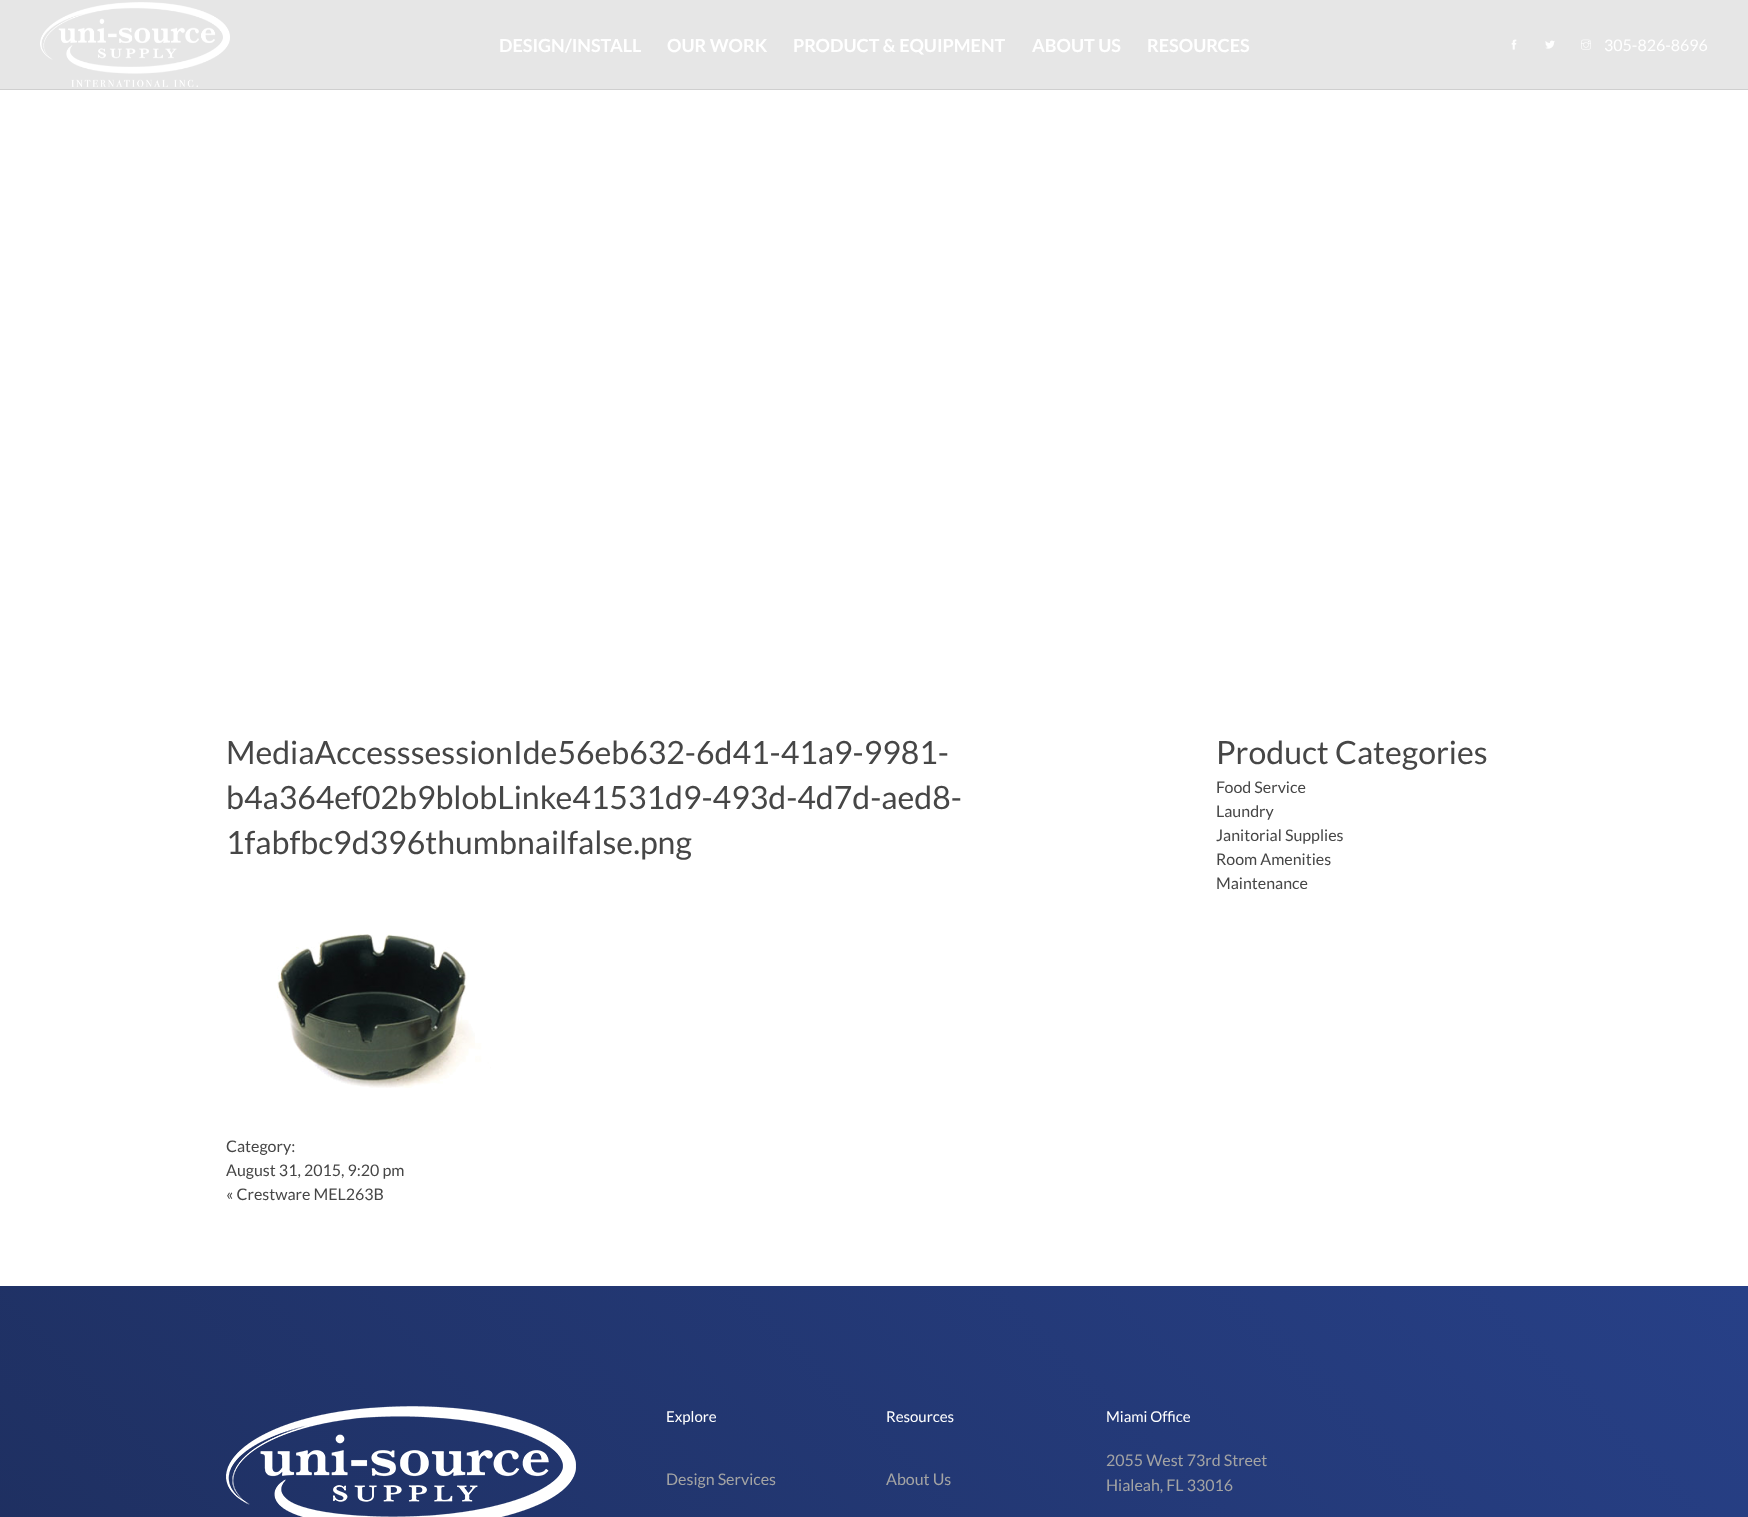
<!DOCTYPE html>
<meta charset="utf-8">
<style>body { margin: 0 } canvas { display: block }</style>
<canvas id="canvas" width="1748" height="1517"></canvas>
<script type="module">
  const canvas = document.getElementById("canvas");
  const g = canvas.getContext("2d");
  g.miterLimit = 4;
  g.fontKerning = "normal";
  function drawText(s, x, y, [font, color]) {
    g.font = font;
    g.fillStyle = color;
    g.fillText(s, x, y);
  }
  function fillBox(x, y, w, h, color) {
    g.fillStyle = color;
    g.fillRect(x, y, w, h);
  }
  async function drawPicture(src, x, y, w, h) {
    const img = new Image();
    img.src = src;
    await img.decode();
    g.drawImage(img, x, y, w, h);
  }
  let gradient;

  const s1 = ["bold 18px Lato", "#FFFFFF"];
  const s2 = ["16px Lato", "#FFFFFF"];
  const s3 = ["32px Lato", "#464646"];
  const s4 = ["16px Lato", "#464646"];
  const s5 = ["15px Lato", "#FFFFFF"];
  const s6 = ["16px Lato", "#A4A4A4"];

  fillBox(0, 0, 1748, 1517, "#FFFFFF");
  fillBox(0, 0, 1748, 89, "#E6E6E6");
  fillBox(0, 89, 1748, 1, "#CFCFCF");
  await drawPicture("pic1.png", 40, 2, 190, 85);
  drawText("DESIGN/INSTALL", 499, 52, s1);
  drawText("OUR WORK", 667, 52, s1);
  drawText("PRODUCT & EQUIPMENT", 793, 52, s1);
  drawText("ABOUT US", 1032, 52, s1);
  drawText("RESOURCES", 1147, 52, s1);
  await drawPicture("pic2.png", 1511, 39, 6, 11);
  await drawPicture("pic3.png", 1545, 40, 10, 9);
  await drawPicture("pic4.png", 1581, 39, 10, 11);
  drawText("305-826-8696", 1604, 51, s2);
  drawText("MediaAccesssessionIde56eb632-6d41-41a9-9981-", 226, 764, s3);
  drawText("b4a364ef02b9blobLinke41531d9-493d-4d7d-aed8-", 226, 809, s3);
  drawText("1fabfbc9d396thumbnailfalse.png", 226, 854, s3);
  await drawPicture("pic5.png", 277, 934, 214, 154);
  drawText("Category:", 226, 1152, s4);
  drawText("August 31, 2015, 9:20 pm", 226, 1176, s4);
  drawText("« Crestware MEL263B", 226, 1200, s4);
  drawText("Product Categories", 1216, 764, s3);
  drawText("Food Service", 1216, 793, s4);
  drawText("Laundry", 1216, 817, s4);
  drawText("Janitorial Supplies", 1216, 841, s4);
  drawText("Room Amenities", 1216, 865, s4);
  drawText("Maintenance", 1216, 889, s4);
  gradient = g.createLinearGradient(226, 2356, 1522, 1060);
  gradient.addColorStop(0, "#1C2B56");
  gradient.addColorStop(1, "#274087");
  g.fillStyle = gradient;
  g.fillRect(0, 1286, 1748, 231);
  await drawPicture("pic6.png", 226, 1406, 350, 111);
  drawText("Explore", 666, 1422, s5);
  drawText("Design Services", 666, 1485, s6);
  drawText("Resources", 886, 1422, s5);
  drawText("About Us", 886, 1485, s6);
  drawText("Miami Office", 1106, 1422, s5);
  drawText("2055 West 73rd Street", 1106, 1466, s6);
  drawText("Hialeah, FL 33016", 1106, 1491, s6);
</script>
